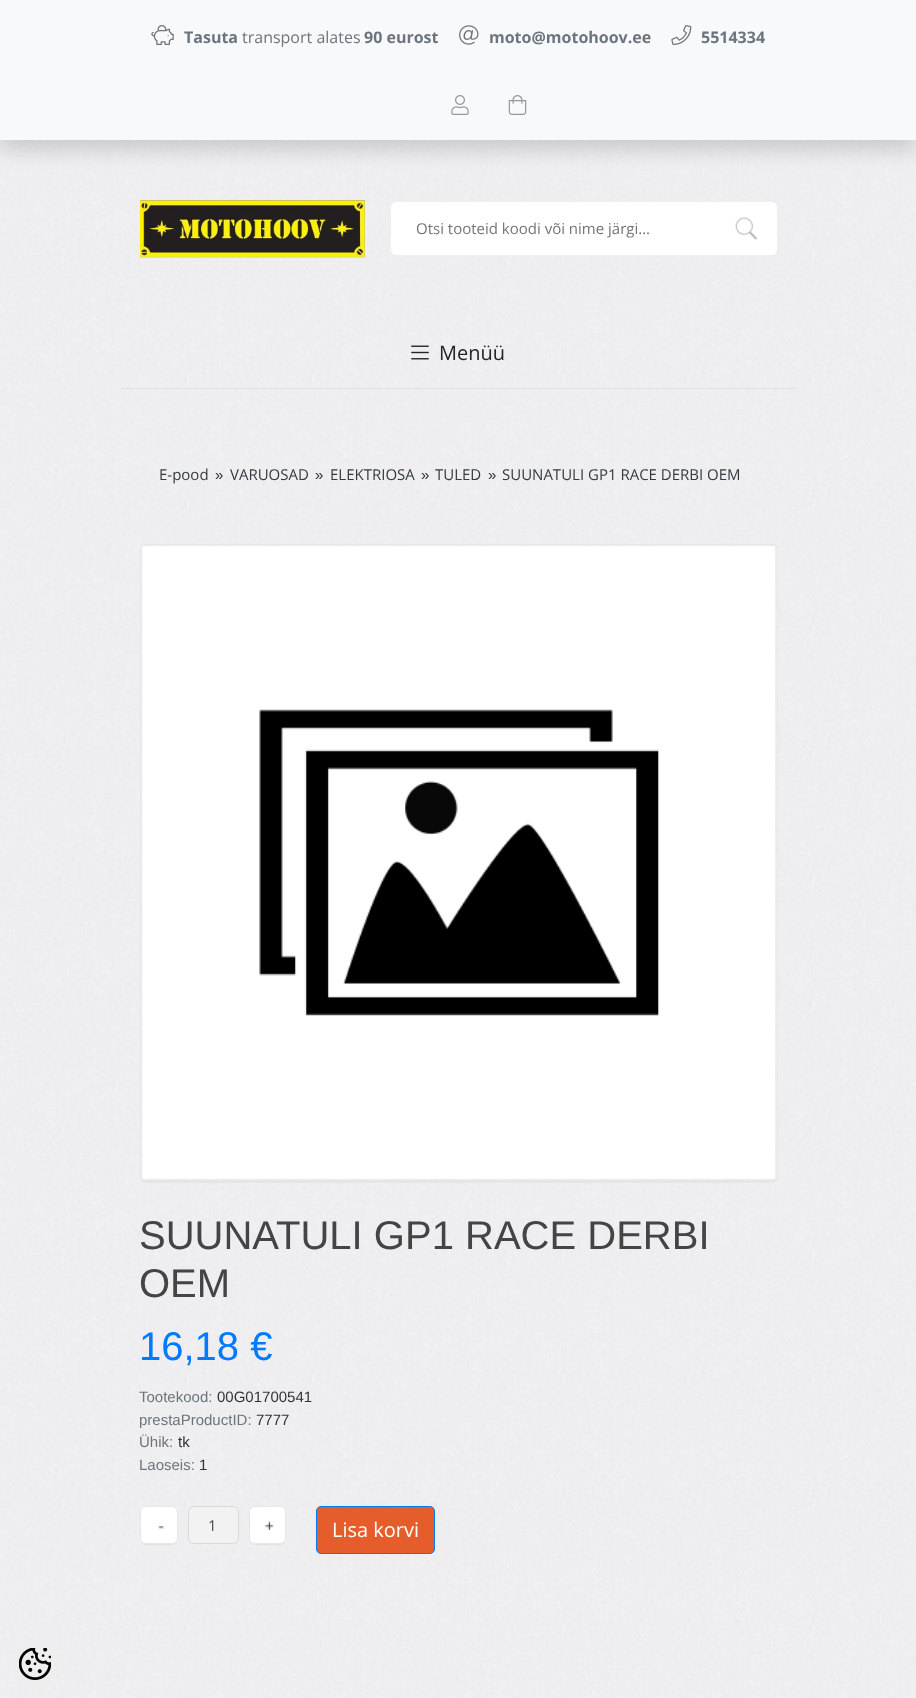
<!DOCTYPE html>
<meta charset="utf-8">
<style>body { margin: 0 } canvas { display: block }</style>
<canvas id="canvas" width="916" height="1698"></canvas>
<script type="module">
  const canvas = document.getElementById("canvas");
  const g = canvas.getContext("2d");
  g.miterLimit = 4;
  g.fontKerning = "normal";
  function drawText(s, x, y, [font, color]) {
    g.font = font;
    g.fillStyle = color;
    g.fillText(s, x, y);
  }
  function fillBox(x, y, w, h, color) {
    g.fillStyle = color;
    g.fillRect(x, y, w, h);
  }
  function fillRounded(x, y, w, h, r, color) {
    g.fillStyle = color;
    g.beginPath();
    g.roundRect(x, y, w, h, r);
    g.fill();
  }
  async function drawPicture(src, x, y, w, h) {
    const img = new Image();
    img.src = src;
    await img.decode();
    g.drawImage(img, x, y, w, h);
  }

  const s1 = ["bold 16px Open Sans", "#6C757D"];
  const s2 = ["16px Open Sans", "#6C757D"];
  const s3 = ["15px Open Sans", "#757575"];
  const s4 = ["20px Open Sans", "#212529"];
  const s5 = ["15px Open Sans", "#343A40"];
  const s6 = ["15px Liberation Sans", "#333333"];
  const s7 = ["40px Liberation Sans", "#444444"];
  const s8 = ["40px Liberation Sans", "#007BFF"];
  const s9 = ["15px Liberation Sans", "#6C757D"];
  const s10 = ["15px Open Sans", "#4C4C4C"];
  const s11 = ["20px Open Sans", "#FFFFFF"];

  fillBox(0, 0, 916, 1698, "#F8F8FA");
  await drawPicture("pic1.png", 0, 140, 916, 1558);
  g.fillStyle = "rgba(0, 0, 0, 0.15)";
  g.filter = "blur(10px)";
  g.beginPath();
  g.rect(0, 10, 916, 140);
  g.fill();
  g.filter = "none";
  fillBox(0, 0, 916, 140, "#F8F9FA");
  await drawPicture("pic2.png", 151, 25, 23, 20);
  drawText("Tasuta", 184, 43, s1);
  drawText("transport alates", 242, 43, s2);
  drawText("90 eurost", 364, 43, s1);
  await drawPicture("pic3.png", 459, 25, 20, 20);
  drawText("moto@motohoov.ee", 489, 43, s1);
  await drawPicture("pic4.png", 671, 25, 21, 20);
  drawText("5514334", 701, 43, s1);
  await drawPicture("pic5.png", 451, 95, 18, 20);
  await drawPicture("pic6.png", 508, 95, 19, 20);
  await drawPicture("pic7.png", 140, 200, 225, 58);
  g.fillStyle = "#FFFFFF";
  g.beginPath();
  g.roundRect(390.5, 201.5, 387, 54, 5.5);
  g.fill();
  g.strokeStyle = "#EEEEEE";
  g.stroke();
  drawText("Otsi tooteid koodi või nime järgi...", 416, 234, s3);
  await drawPicture("pic8.png", 735, 217, 23, 23);
  fillBox(121, 388, 675, 1, "#E1E1E1");
  await drawPicture("pic9.png", 411, 345, 18, 15);
  drawText("Menüü", 439, 360, s4);
  drawText("E-pood", 159, 480, s5);
  drawText("»", 215, 480, s6);
  drawText("VARUOSAD", 230, 480, s5);
  drawText("»", 315, 480, s6);
  drawText("ELEKTRIOSA", 330, 480, s5);
  drawText("»", 421, 480, s6);
  drawText("TULED", 435, 480, s5);
  drawText("»", 488, 480, s6);
  drawText("SUUNATULI GP1 RACE DERBI OEM", 502, 480, s5);
  g.fillStyle = "rgba(0, 0, 0, 0.03)";
  g.beginPath();
  g.moveTo(140, 1175);
  g.lineTo(140, 1177);
  g.bezierCurveTo(140, 1180, 143, 1183, 146, 1183);
  g.lineTo(772, 1183);
  g.bezierCurveTo(775, 1183, 778, 1180, 778, 1177);
  g.lineTo(778, 551);
  g.lineTo(777, 548);
  g.lineTo(778, 550);
  g.lineTo(778, 1175);
  g.bezierCurveTo(778, 1178, 775, 1181, 771, 1181);
  g.lineTo(146, 1181);
  g.bezierCurveTo(143, 1181, 140, 1178, 140, 1175);
  g.closePath();
  g.fill();
  g.beginPath();
  g.roundRect(140.5, 544.5, 637, 636, 5.5);
  g.strokeStyle = "#E6E6E6";
  g.stroke();
  await drawPicture("pic10.png", 142, 546, 633, 633);
  drawText("SUUNATULI GP1 RACE DERBI", 139, 1249, s7);
  drawText("OEM", 139, 1297, s7);
  drawText("16,18 €", 139, 1360, s8);
  drawText("Tootekood:", 139, 1402, s9);
  drawText("00G01700541", 217, 1402, s6);
  drawText("prestaProductID:", 139, 1425, s9);
  drawText("7777", 256, 1425, s6);
  drawText("Ühik:", 139, 1447, s9);
  drawText("tk", 178, 1447, s6);
  drawText("Laoseis:", 139, 1470, s9);
  drawText("1", 199, 1470, s6);
  g.fillStyle = "rgba(0, 0, 0, 0.05)";
  g.beginPath();
  g.moveTo(140, 1537.5);
  g.bezierCurveTo(140, 1545, 144, 1545, 150.5, 1545);
  g.lineTo(159, 1545);
  g.bezierCurveTo(179.5, 1545, 178, 1547, 178, 1526.5);
  g.lineTo(178, 1518);
  g.bezierCurveTo(178, 1516, 178.5, 1513.5, 177.5, 1511.5);
  g.lineTo(177.5, 1529);
  g.bezierCurveTo(177.5, 1544, 178, 1544, 163, 1544);
  g.lineTo(150.5, 1544);
  g.bezierCurveTo(146, 1544, 140, 1544, 140, 1537.5);
  g.closePath();
  g.fill();
  fillRounded(140, 1506, 38, 38, 6, "#FFFFFF");
  await drawPicture("pic11.png", 158, 1526, 6, 3);
  g.beginPath();
  g.roundRect(140.5, 1506.5, 37, 37, 5.5);
  g.stroke();
  g.fillStyle = "#F2F2F2";
  g.beginPath();
  g.roundRect(188.5, 1506.5, 50, 37, 5.5);
  g.fill();
  g.strokeStyle = "#D9D9D9";
  g.stroke();
  drawText("1", 208, 1531, s10);
  g.fillStyle = "rgba(0, 0, 0, 0.05)";
  g.beginPath();
  g.moveTo(249, 1539.5);
  g.bezierCurveTo(249, 1542.5, 252, 1545, 255, 1545);
  g.lineTo(280, 1545);
  g.bezierCurveTo(283, 1545, 286, 1542.5, 286, 1539.5);
  g.bezierCurveTo(285, 1542, 283, 1544, 280, 1544);
  g.lineTo(255, 1544);
  g.bezierCurveTo(252, 1544, 250, 1542, 249, 1539.5);
  g.closePath();
  g.fill();
  fillRounded(249, 1506, 37, 38, 6, "#FFFFFF");
  await drawPicture("pic12.png", 265, 1521, 9, 9);
  g.beginPath();
  g.roundRect(249.5, 1506.5, 36, 37, 5.5);
  g.strokeStyle = "#E6E6E6";
  g.stroke();
  g.fillStyle = "#E65D2C";
  g.beginPath();
  g.roundRect(316.5, 1506.5, 118, 47, 4.5);
  g.fill();
  g.strokeStyle = "#007BFF";
  g.stroke();
  drawText("Lisa korvi", 332, 1537, s11);
  g.fillStyle = "#EEEEEE";
  g.beginPath();
  g.arc(35.5, 1663.5, 22.5, 0, Math.PI * 2);
  g.fill();
  await drawPicture("pic13.png", 19, 1648, 32, 32);
</script>
